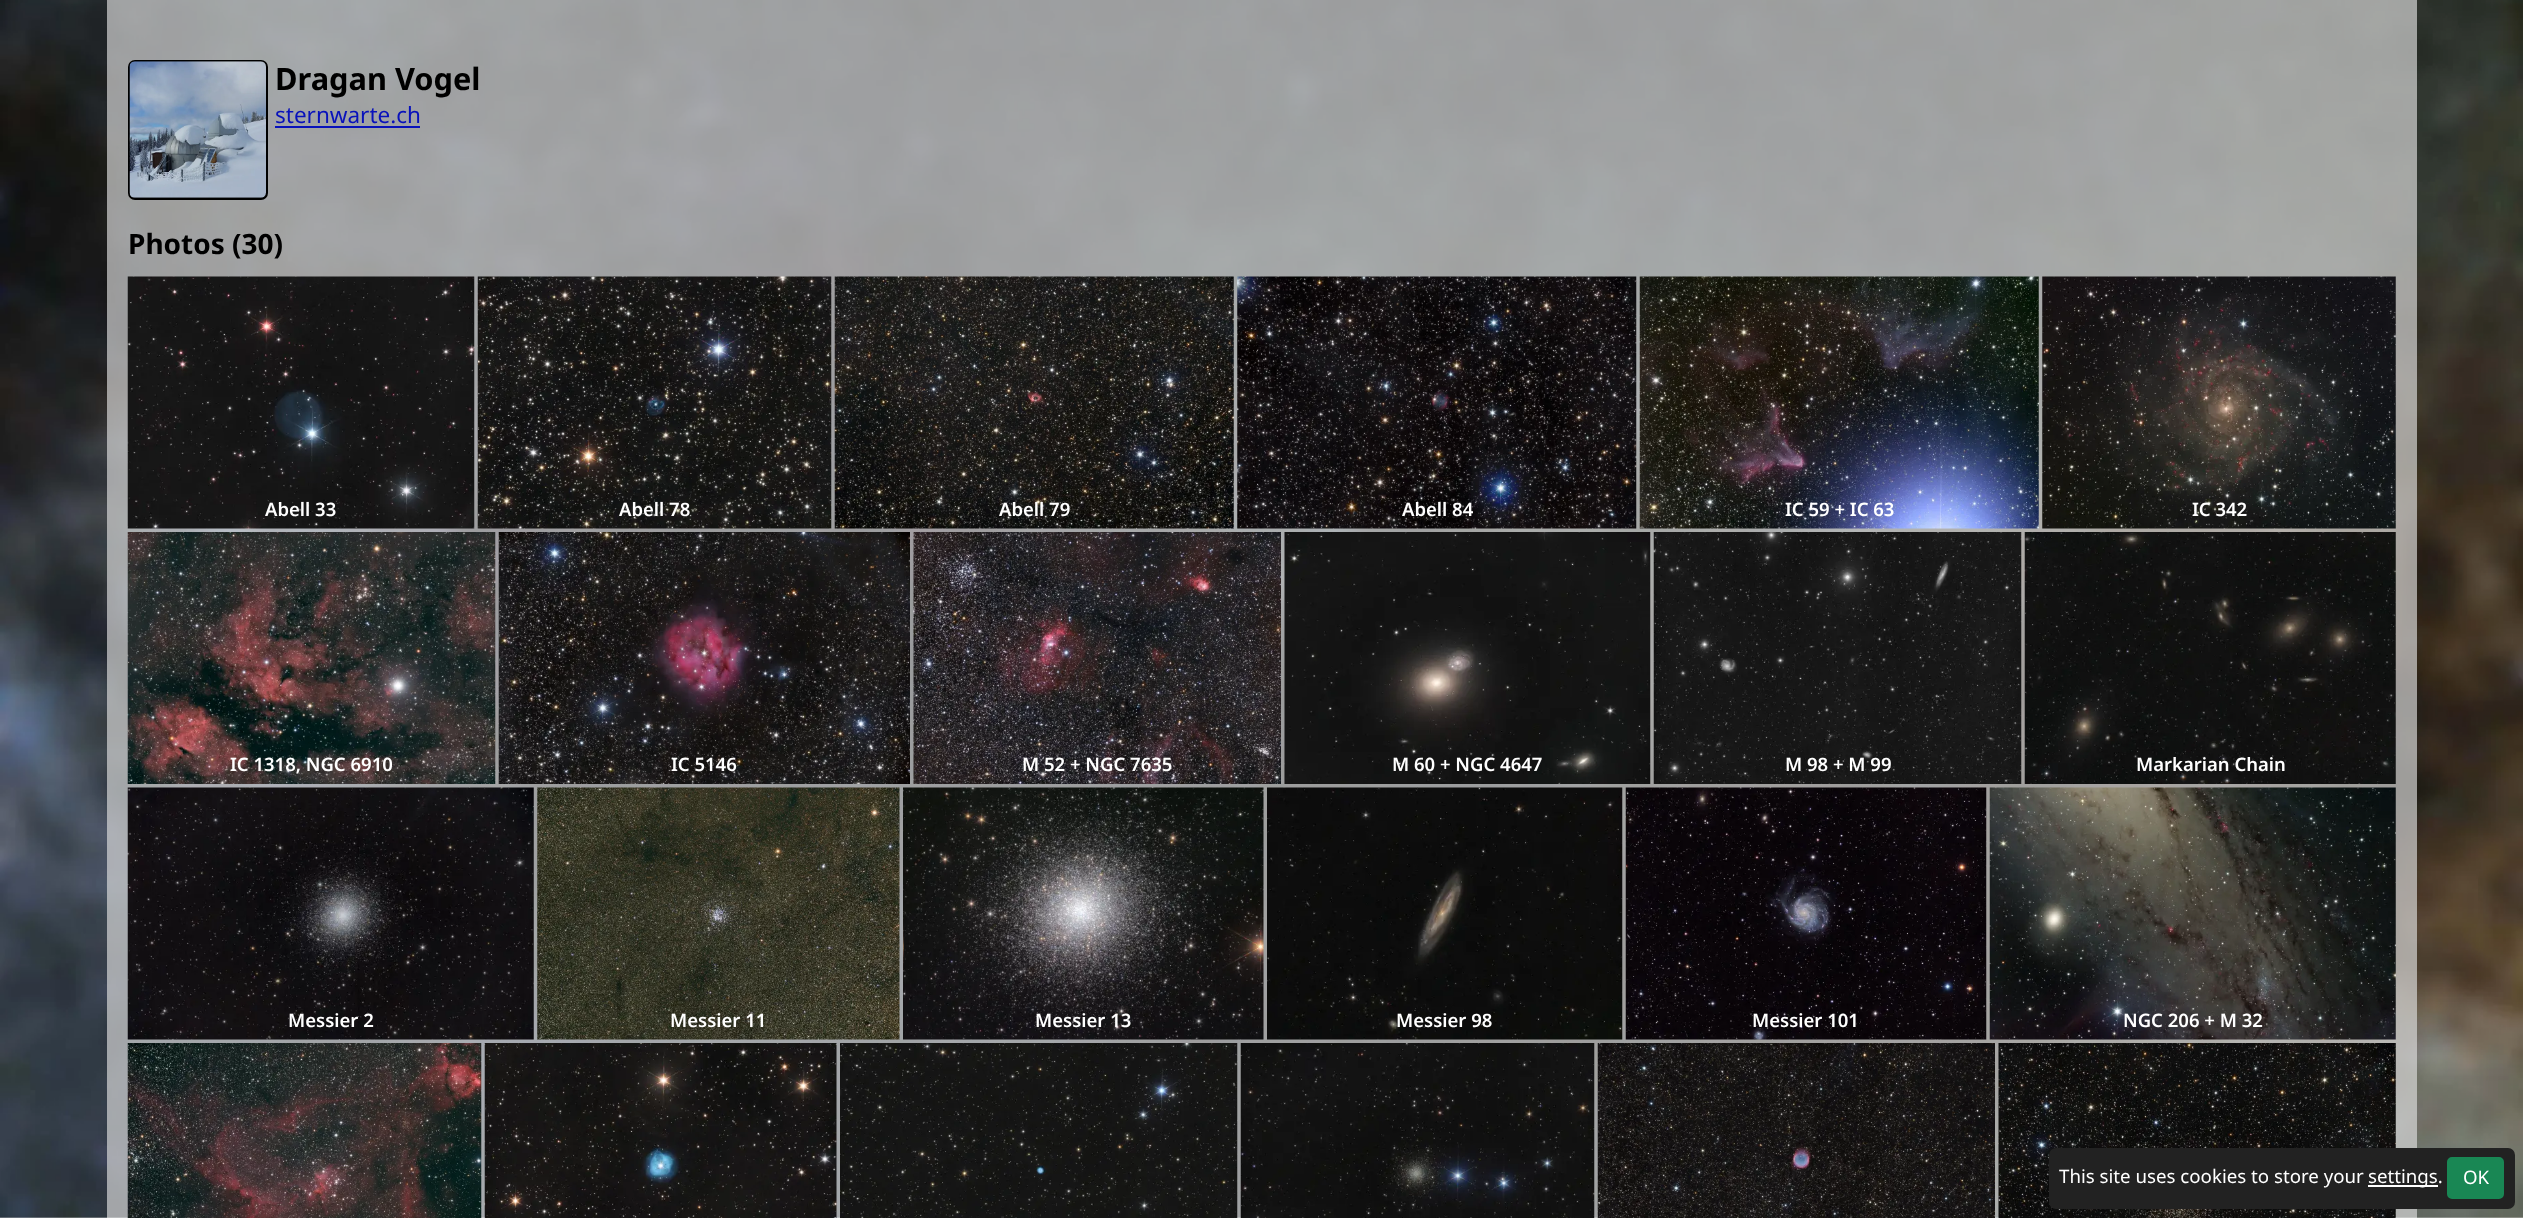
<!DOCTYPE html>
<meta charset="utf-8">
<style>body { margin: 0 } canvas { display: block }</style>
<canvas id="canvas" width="2523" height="1218"></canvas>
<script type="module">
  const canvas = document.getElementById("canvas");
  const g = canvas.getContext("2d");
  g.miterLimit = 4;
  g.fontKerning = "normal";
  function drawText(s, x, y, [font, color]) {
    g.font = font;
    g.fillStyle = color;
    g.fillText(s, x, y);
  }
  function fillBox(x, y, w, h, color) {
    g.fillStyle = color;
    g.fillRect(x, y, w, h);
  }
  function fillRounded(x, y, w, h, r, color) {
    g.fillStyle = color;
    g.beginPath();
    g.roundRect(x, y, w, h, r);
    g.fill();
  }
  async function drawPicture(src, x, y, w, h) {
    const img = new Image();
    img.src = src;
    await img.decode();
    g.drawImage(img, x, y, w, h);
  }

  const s1 = ["bold 30.75px Noto Sans", "#000000"];
  const s2 = ["22.5px Noto Sans", "#0811BB"];
  const s3 = ["bold 28px Noto Sans", "#000000"];
  const s4 = ["600 18.5px Noto Sans", "#FFFFFF"];
  const s5 = ["18.7px Noto Sans", "#FFFFFF"];

  fillBox(0, 0, 2523, 1218, "#FFFFFF");
  await drawPicture("pic1.png", 0, 0, 2523, 1218);
  g.fillStyle = "#000000";
  g.beginPath();
  g.roundRect(129, 61, 138, 138, 6);
  g.fill();
  g.strokeStyle = "#000000";
  g.lineWidth = 2;
  g.stroke();
  await drawPicture("pic2.png", 129, 61, 137, 137);
  drawText("Dragan Vogel", 275, 90, s1);
  drawText("sternwarte.ch", 275, 123, s2);
  fillBox(275, 126, 145, 2, "#0811BB");
  drawText("Photos (30)", 128, 254, s3);
  await drawPicture("pic3.png", 127, 276, 348, 253);
  drawText("Abell 33", 265, 516, s4);
  await drawPicture("pic4.png", 477, 276, 355, 253);
  drawText("Abell 78", 619, 516, s4);
  await drawPicture("pic5.png", 834, 276, 400, 253);
  drawText("Abell 79", 999, 516, s4);
  await drawPicture("pic6.png", 1237, 276, 400, 253);
  drawText("Abell 84", 1402, 516, s4);
  await drawPicture("pic7.png", 1639, 276, 400, 253);
  drawText("IC 59 + IC 63", 1785, 516, s4);
  await drawPicture("pic8.png", 2042, 276, 354, 253);
  drawText("IC 342", 2192, 516, s4);
  await drawPicture("pic9.png", 127, 532, 369, 252);
  drawText("IC 1318, NGC 6910", 230, 771, s4);
  await drawPicture("pic10.png", 498, 532, 412, 252);
  drawText("IC 5146", 671, 771, s4);
  await drawPicture("pic11.png", 913, 532, 368, 252);
  drawText("M 52 + NGC 7635", 1022, 771, s4);
  await drawPicture("pic12.png", 1284, 532, 367, 252);
  drawText("M 60 + NGC 4647", 1392, 771, s4);
  await drawPicture("pic13.png", 1653, 532, 369, 252);
  drawText("M 98 + M 99", 1785, 771, s4);
  await drawPicture("pic14.png", 2024, 532, 372, 252);
  drawText("Markarian Chain", 2136, 771, s4);
  await drawPicture("pic15.png", 127, 787, 407, 253);
  drawText("Messier 2", 288, 1027, s4);
  await drawPicture("pic16.png", 537, 787, 363, 253);
  drawText("Messier 11", 670, 1027, s4);
  await drawPicture("pic17.png", 903, 787, 361, 253);
  drawText("Messier 13", 1035, 1027, s4);
  await drawPicture("pic18.png", 1267, 787, 356, 253);
  drawText("Messier 98", 1396, 1027, s4);
  await drawPicture("pic19.png", 1625, 787, 362, 253);
  drawText("Messier 101", 1752, 1027, s4);
  await drawPicture("pic20.png", 1989, 787, 407, 253);
  drawText("NGC 206 + M 32", 2123, 1027, s4);
  await drawPicture("pic21.png", 127, 1043, 355, 175);
  await drawPicture("pic22.png", 484, 1043, 353, 175);
  await drawPicture("pic23.png", 840, 1043, 398, 175);
  await drawPicture("pic24.png", 1240, 1043, 355, 175);
  await drawPicture("pic25.png", 1597, 1043, 398, 175);
  await drawPicture("pic26.png", 1998, 1043, 398, 175);
  fillRounded(2049, 1148, 466, 61, 7, "#222222");
  drawText("This site uses cookies to store your", 2059, 1183, s5);
  fillBox(2368, 1185, 70, 2, "#FFFFFF");
  drawText("settings.", 2368, 1183, s5);
  g.fillStyle = "#198754";
  g.beginPath();
  g.roundRect(2448, 1158, 55, 40, 4);
  g.fill();
  g.strokeStyle = "#198754";
  g.stroke();
  drawText("OK", 2463, 1184, s5);
</script>
